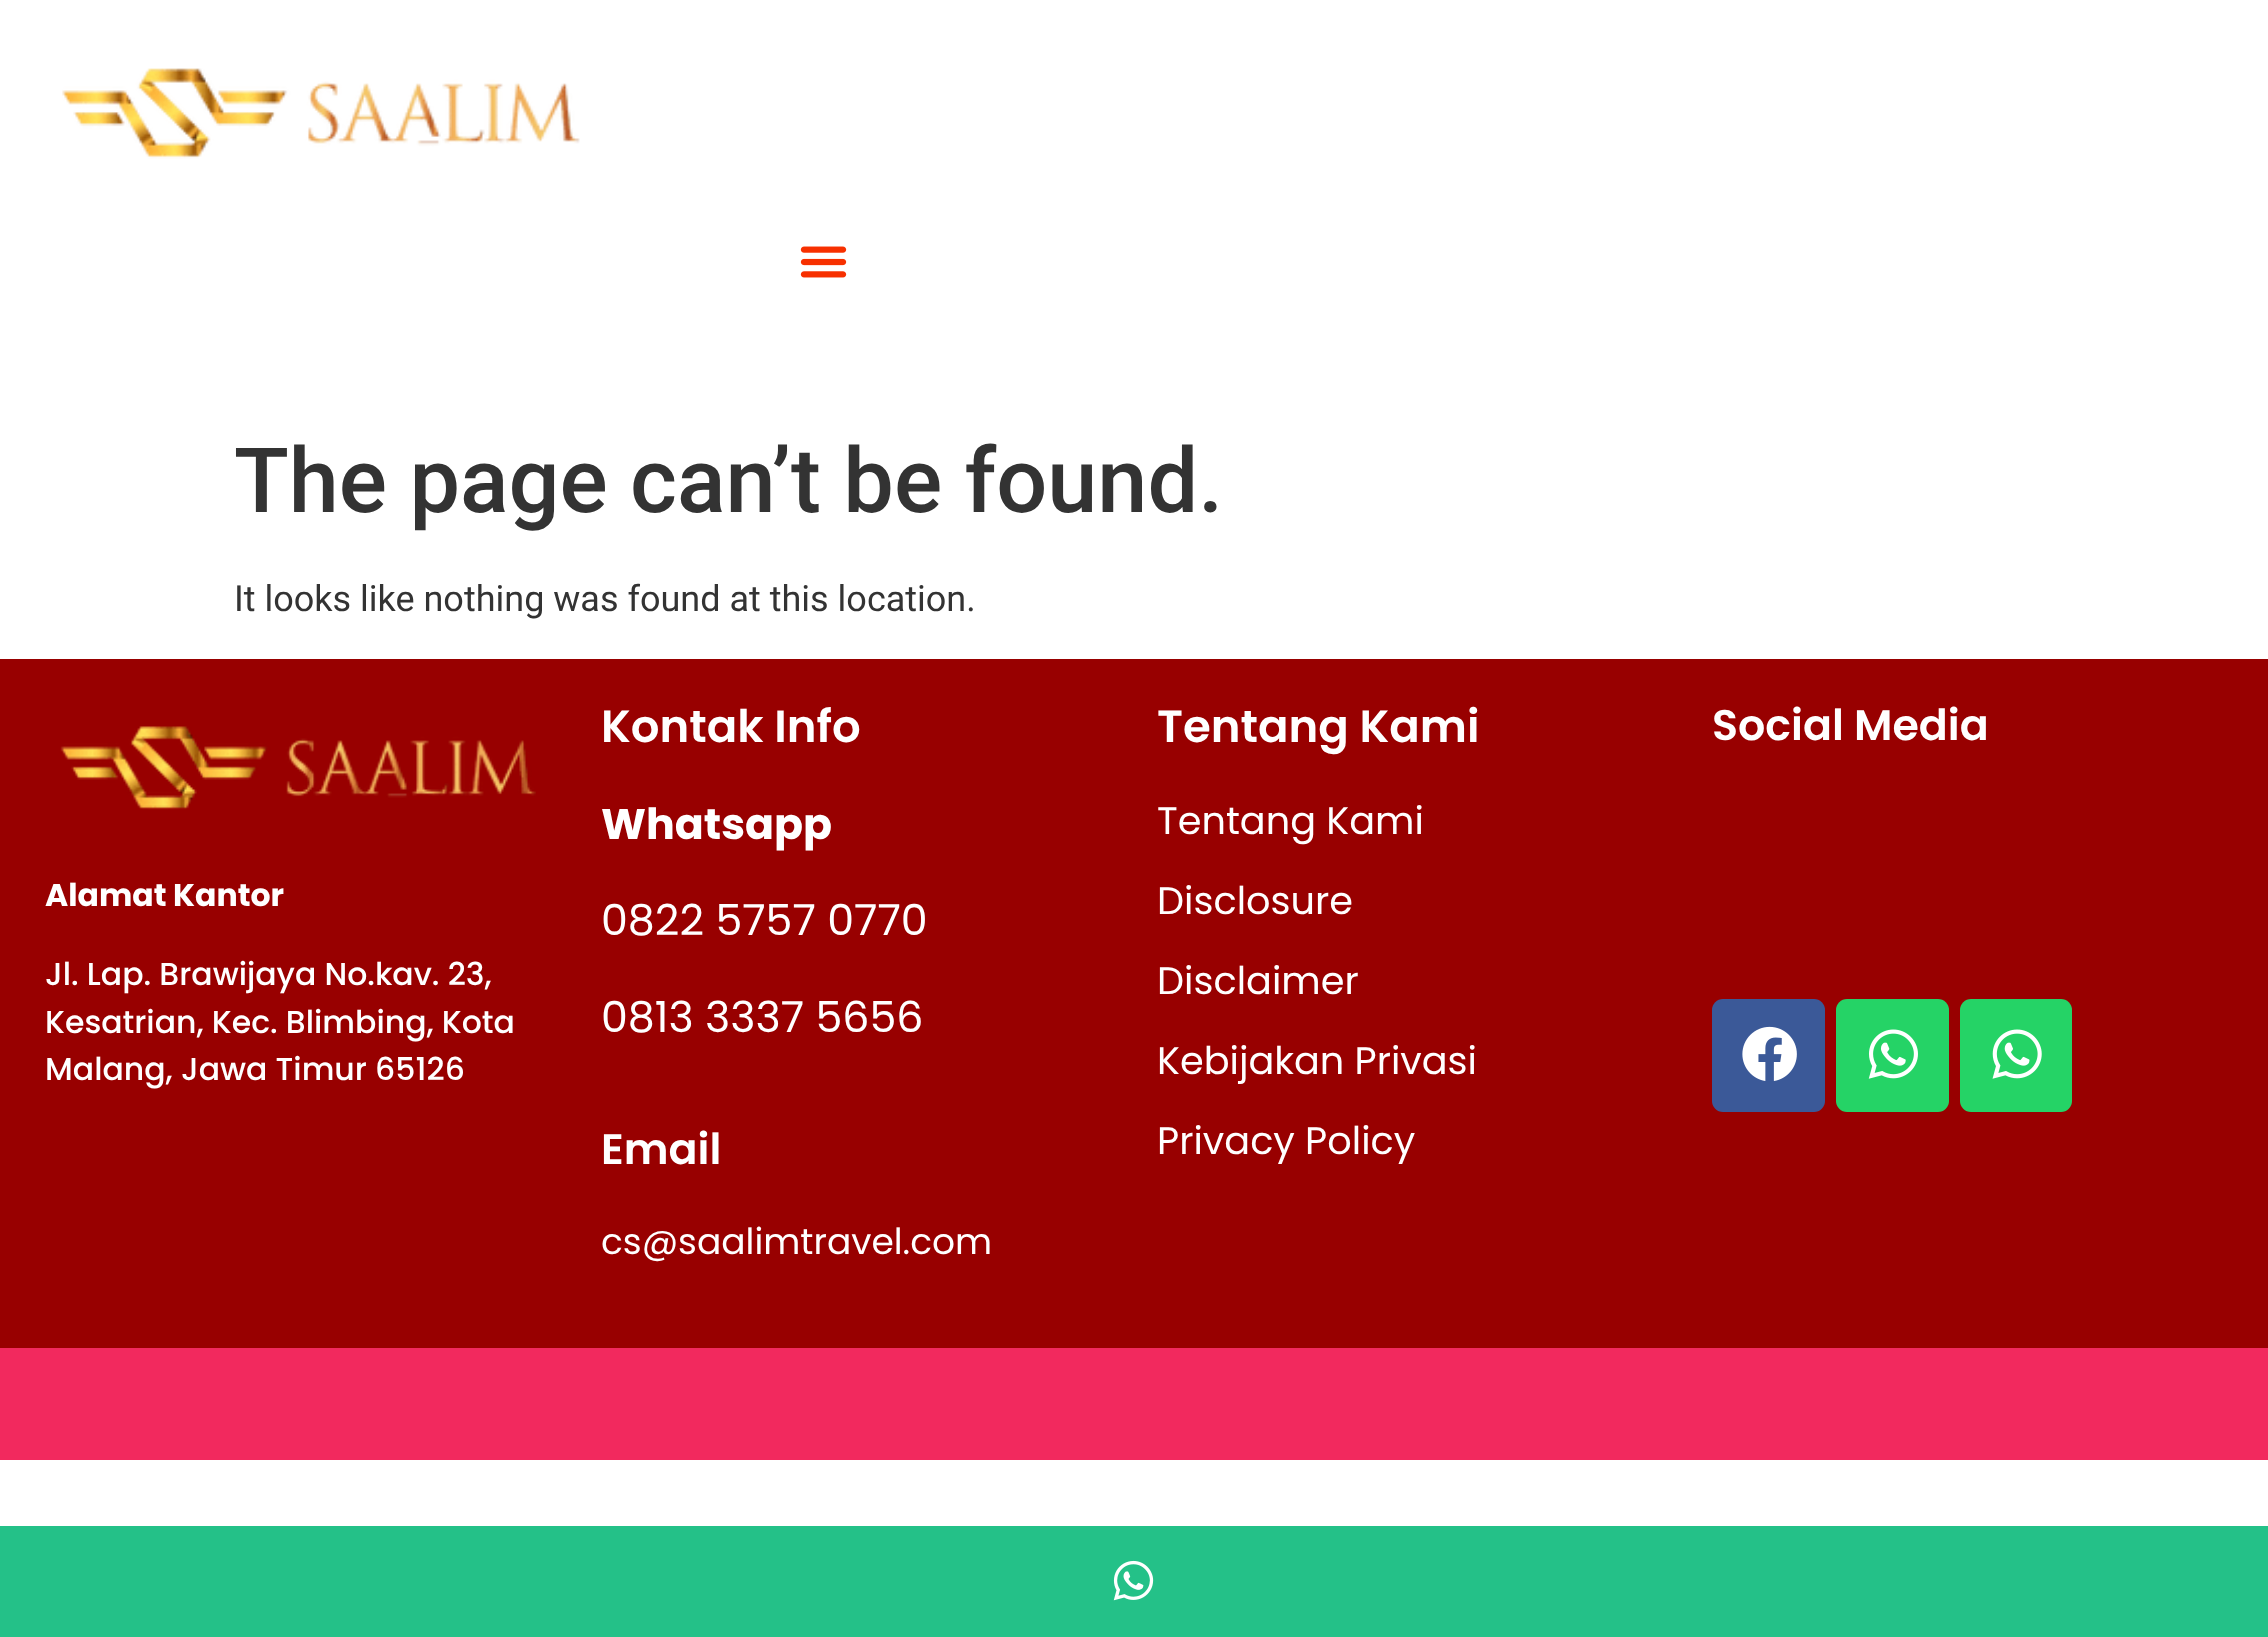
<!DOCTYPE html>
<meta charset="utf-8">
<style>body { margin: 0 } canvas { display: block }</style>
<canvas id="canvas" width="2268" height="1637"></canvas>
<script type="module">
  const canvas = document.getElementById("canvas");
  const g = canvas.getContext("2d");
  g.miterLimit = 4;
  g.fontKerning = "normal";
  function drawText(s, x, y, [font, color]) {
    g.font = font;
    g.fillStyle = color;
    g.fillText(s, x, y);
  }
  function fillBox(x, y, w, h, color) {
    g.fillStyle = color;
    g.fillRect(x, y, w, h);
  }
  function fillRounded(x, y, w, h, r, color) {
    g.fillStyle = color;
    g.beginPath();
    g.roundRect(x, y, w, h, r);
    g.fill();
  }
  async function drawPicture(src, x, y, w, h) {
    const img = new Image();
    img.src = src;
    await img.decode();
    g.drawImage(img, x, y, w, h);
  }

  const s1 = ["500 90px Roboto", "#333333"];
  const s2 = ["36px Roboto", "#333333"];
  const s3 = ["bold 31.5px Poppins", "#FFFFFF"];
  const s4 = ["500 31.5px Poppins", "#FFFFFF"];
  const s5 = ["600 45px Poppins", "#FFFFFF"];
  const s6 = ["bold 42.75px Poppins", "#FFFFFF"];
  const s7 = ["42.75px Poppins", "#FFFFFF"];
  const s8 = ["600 42.75px Poppins", "#FFFFFF"];
  const s9 = ["36px Poppins", "#FFFFFF"];
  const s10 = ["38.25px Poppins", "#FFFFFF"];

  fillBox(0, 0, 2268, 1637, "#FFFFFF");
  fillBox(0, 1348, 2268, 112, "#F2295E");
  await drawPicture("pic1.png", 62, 68, 518, 91);
  await drawPicture("pic2.png", 800, 246, 47, 32);
  drawText("The page can’t be found.", 234, 512, s1);
  drawText("It looks like nothing was found at this location.", 234, 611, s2);
  fillBox(0, 659, 2268, 689, "#980000");
  await drawPicture("pic3.png", 60, 726, 476, 84);
  drawText("Alamat Kantor", 45, 906, s3);
  drawText("Jl. Lap. Brawijaya No.kav. 23,", 45, 985, s4);
  drawText("Kesatrian, Kec. Blimbing, Kota", 45, 1033, s4);
  drawText("Malang, Jawa Timur 65126", 45, 1080, s4);
  drawText("Kontak Info", 601, 742, s5);
  drawText("Whatsapp", 601, 839, s6);
  drawText("0822 5757 0770", 601, 935, s7);
  drawText("0813 3337 5656", 601, 1032, s7);
  drawText("Email", 601, 1164, s8);
  drawText("cs@saalimtravel.com", 601, 1254, s9);
  drawText("Tentang Kami", 1157, 742, s5);
  drawText("Tentang Kami", 1157, 834, s10);
  drawText("Disclosure", 1157, 914, s10);
  drawText("Disclaimer", 1157, 994, s10);
  drawText("Kebijakan Privasi", 1157, 1074, s10);
  drawText("Privacy Policy", 1157, 1154, s10);
  drawText("Social Media", 1712, 740, s8);
  fillRounded(1712, 999, 113, 113, 11, "#3B5998");
  await drawPicture("pic4.png", 1742, 1026, 55, 55);
  fillRounded(1836, 999, 113, 113, 11, "#25D366");
  await drawPicture("pic5.png", 1868, 1029, 50, 50);
  fillRounded(1960, 999, 112, 113, 11, "#25D366");
  await drawPicture("pic6.png", 1992, 1029, 50, 50);
  fillBox(0, 1526, 2268, 111, "#24C188");
  await drawPicture("pic7.png", 1113, 1560, 41, 41);
</script>
